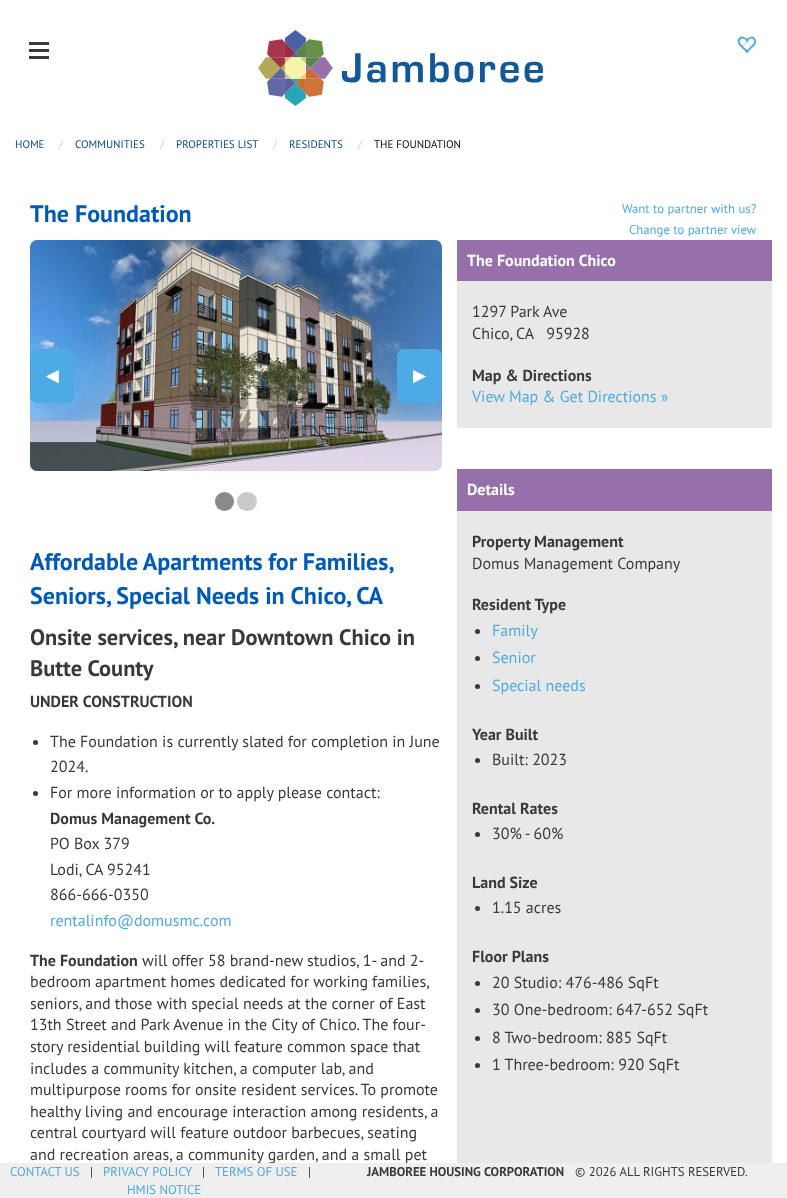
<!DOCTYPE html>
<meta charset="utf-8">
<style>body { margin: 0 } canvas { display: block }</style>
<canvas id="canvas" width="787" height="1198"></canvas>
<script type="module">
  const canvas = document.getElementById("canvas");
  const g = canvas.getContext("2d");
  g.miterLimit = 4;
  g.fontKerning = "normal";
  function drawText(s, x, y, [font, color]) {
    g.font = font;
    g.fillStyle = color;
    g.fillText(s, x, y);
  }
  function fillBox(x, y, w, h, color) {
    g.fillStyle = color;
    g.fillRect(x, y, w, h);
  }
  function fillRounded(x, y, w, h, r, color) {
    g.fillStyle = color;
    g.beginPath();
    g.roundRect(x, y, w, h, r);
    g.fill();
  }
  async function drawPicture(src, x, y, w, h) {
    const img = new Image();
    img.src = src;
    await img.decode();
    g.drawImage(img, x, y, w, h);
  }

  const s1 = ["11px PT Sans", "#094C80"];
  const s2 = ["11px PT Sans", "#CACACA"];
  const s3 = ["11px PT Sans", "#0A0A0A"];
  const s4 = ["bold 24px PT Sans", "#015BB6"];
  const s5 = ["12.75px PT Sans", "#4DAAE4"];
  const s6 = ["bold 16px DejaVu Sans", "#FFFFFF"];
  const s7 = ["bold 22.4px PT Sans", "#393939"];
  const s8 = ["bold 16px PT Sans", "#393939"];
  const s9 = ["16px PT Sans", "#393939"];
  const s10 = ["16px PT Sans", "#4DAAE4"];
  const s11 = ["bold 16px PT Sans", "#FFFFFF"];
  const s12 = ["12.75px PT Sans", "#393939"];
  const s13 = ["bold 12.75px PT Sans", "#393939"];

  fillBox(0, 0, 787, 1198, "#FFFFFF");
  fillBox(29, 56, 20, 3, "#393939");
  fillBox(29, 49, 20, 3, "#393939");
  fillBox(29, 42, 20, 3, "#393939");
  await drawPicture("pic1.png", 258, 30, 285, 76);
  g.fillStyle = "#4DAAE4";
  g.beginPath();
  g.moveTo(739, 38);
  g.bezierCurveTo(742.5, 34.5, 746, 38, 748.5, 40.5);
  g.lineTo(741.5, 47.5);
  g.bezierCurveTo(739, 45, 735.5, 41.5, 739, 38);
  g.closePath();
  g.moveTo(740.5, 39.5);
  g.bezierCurveTo(743, 37, 745.5, 40, 747, 41.5);
  g.lineTo(742.5, 46);
  g.bezierCurveTo(741, 44.5, 738, 42, 740.5, 39.5);
  g.closePath();
  g.fill("evenodd");
  g.beginPath();
  g.moveTo(745.5, 51.5);
  g.lineTo(753.5, 44);
  g.lineTo(754.5, 45);
  g.lineTo(747, 53);
  g.closePath();
  g.fill();
  g.beginPath();
  g.moveTo(739, 45);
  g.lineTo(740.5, 44);
  g.lineTo(748.5, 51.5);
  g.lineTo(747, 53);
  g.closePath();
  g.fill();
  g.beginPath();
  g.moveTo(754.5, 38);
  g.bezierCurveTo(758, 41.5, 755, 45, 752.5, 47.5);
  g.lineTo(745.5, 40.5);
  g.bezierCurveTo(748, 38, 751.5, 34.5, 754.5, 38);
  g.closePath();
  g.moveTo(753.5, 39.5);
  g.bezierCurveTo(755.5, 42, 753, 44.5, 751, 46);
  g.lineTo(747, 41.5);
  g.bezierCurveTo(748.5, 40, 751, 37, 753.5, 39.5);
  g.closePath();
  g.fill("evenodd");
  drawText("HOME", 15, 148, s1);
  drawText("/", 59, 148, s2);
  drawText("COMMUNITIES", 75, 148, s1);
  drawText("/", 160, 148, s2);
  drawText("PROPERTIES LIST", 176, 148, s1);
  drawText("/", 273, 148, s2);
  drawText("RESIDENTS", 289, 148, s1);
  drawText("/", 358, 148, s2);
  drawText("THE FOUNDATION", 374, 148, s3);
  drawText("The Foundation", 30, 222, s4);
  drawText("Want to partner with us?", 622, 213, s5);
  drawText("Change to partner view", 629, 234, s5);
  await drawPicture("pic2.png", 30, 240, 412, 231);
  fillRounded(30, 349, 44, 54, 7, "#4DAAE4");
  drawText("◀︎", 46, 381, s6);
  fillRounded(397, 349, 45, 54, 7, "#4DAAE4");
  drawText("▶︎", 413, 381, s6);
  g.fillStyle = "#8A8A8A";
  g.beginPath();
  g.arc(224.5, 501.5, 9.5, 0, Math.PI * 2);
  g.fill();
  fillRounded(237, 492, 20, 19, 9.5, "#CACACA");
  g.wordSpacing = "-0.5px";
  drawText("Affordable Apartments for Families,", 30, 570, s4);
  g.wordSpacing = "0px";
  drawText("Seniors, Special Needs in Chico, CA", 30, 604, s4);
  drawText("Onsite services, near Downtown", 30, 645, s7);
  drawText("Chico in", 339, 645, s7);
  drawText("Butte County", 30, 676, s7);
  drawText("UNDER CONSTRUCTION", 30, 707, s8);
  g.beginPath();
  g.arc(35.5, 742.5, 2.5, 0, Math.PI * 2);
  g.fill();
  drawText("The Foundation is currently slated for completion in June", 50, 747, s9);
  drawText("2024.", 50, 772, s9);
  g.beginPath();
  g.arc(35.5, 793.5, 2.5, 0, Math.PI * 2);
  g.fill();
  drawText("For more information or to apply please contact:", 50, 798, s9);
  drawText("Domus Management Co.", 50, 824, s8);
  drawText("PO Box 379", 50, 849, s9);
  drawText("Lodi, CA 95241", 50, 875, s9);
  drawText("866-666-0350", 50, 900, s9);
  drawText("rentalinfo@domusmc.com", 50, 926, s10);
  drawText("The Foundation", 30, 966, s8);
  drawText("will offer 58 brand-new studios, 1- and 2-", 142, 966, s9);
  g.wordSpacing = "-0.25px";
  drawText("bedroom apartment homes dedicated for working families,", 30, 987, s9);
  g.wordSpacing = "0px";
  drawText("seniors, and those with special needs at the corner of East", 30, 1009, s9);
  drawText("13th Street and Park Avenue in the City of Chico. The four-", 30, 1030, s9);
  drawText("story residential building will feature common space that", 30, 1052, s9);
  drawText("includes a community kitchen, a computer lab, and", 30, 1074, s9);
  drawText("multipurpose rooms for onsite resident services. To promote", 30, 1095, s9);
  drawText("healthy living and encourage interaction among residents, a", 30, 1117, s9);
  drawText("central courtyard will feature outdoor barbecues, seating", 30, 1138, s9);
  g.save();
  g.beginPath();
  g.rect(0, 136, 787, 1027);
  g.clip();
  drawText("and recreation areas, a community garden, and a small pet", 30, 1160, s9);
  g.restore();
  fillBox(457, 281, 315, 882, "#E8E8E8");
  fillBox(457, 240, 315, 41, "#966FAB");
  drawText("The Foundation Chico", 467, 266, s11);
  drawText("1297 Park Ave", 472, 317, s9);
  drawText("Chico, CA   95928", 472, 339, s9);
  drawText("Map & Directions", 472, 381, s8);
  drawText("View Map & Get Directions »", 472, 402, s10);
  fillBox(457, 428, 315, 41, "#FFFFFF");
  fillBox(457, 469, 315, 42, "#966FAB");
  drawText("Details", 467, 495, s11);
  drawText("Property Management", 472, 547, s8);
  drawText("Domus Management Company", 472, 569, s9);
  drawText("Resident Type", 472, 610, s8);
  g.beginPath();
  g.arc(477.5, 631.5, 2.5, 0, Math.PI * 2);
  g.fill();
  drawText("Family", 492, 636, s10);
  g.fillStyle = "#393939";
  g.beginPath();
  g.arc(477.5, 658.5, 2.5, 0, Math.PI * 2);
  g.fill();
  drawText("Senior", 492, 663, s10);
  g.fillStyle = "#393939";
  g.beginPath();
  g.arc(477.5, 686.5, 2.5, 0, Math.PI * 2);
  g.fill();
  drawText("Special needs", 492, 691, s10);
  drawText("Year Built", 472, 740, s8);
  g.beginPath();
  g.arc(477.5, 760.5, 2.5, 0, Math.PI * 2);
  g.fill();
  drawText("Built: 2023", 492, 765, s9);
  drawText("Rental Rates", 472, 814, s8);
  g.beginPath();
  g.arc(477.5, 834.5, 2.5, 0, Math.PI * 2);
  g.fill();
  drawText("30% - 60%", 492, 839, s9);
  drawText("Land Size", 472, 888, s8);
  g.beginPath();
  g.arc(477.5, 908.5, 2.5, 0, Math.PI * 2);
  g.fill();
  drawText("1.15 acres", 492, 913, s9);
  drawText("Floor Plans", 472, 962, s8);
  g.beginPath();
  g.arc(477.5, 983.5, 2.5, 0, Math.PI * 2);
  g.fill();
  drawText("20 Studio: 476-486 SqFt", 492, 988, s9);
  g.beginPath();
  g.arc(477.5, 1010.5, 2.5, 0, Math.PI * 2);
  g.fill();
  drawText("30 One-bedroom: 647-652 SqFt", 492, 1015, s9);
  g.beginPath();
  g.arc(477.5, 1038.5, 2.5, 0, Math.PI * 2);
  g.fill();
  drawText("8 Two-bedroom: 885 SqFt", 492, 1043, s9);
  g.beginPath();
  g.arc(477.5, 1065.5, 2.5, 0, Math.PI * 2);
  g.fill();
  drawText("1 Three-bedroom: 920 SqFt", 492, 1070, s9);
  fillBox(0, 1163, 787, 35, "#EFEFEF");
  drawText("CONTACT US", 10, 1176, s5);
  drawText("|", 90, 1176, s12);
  drawText("PRIVACY POLICY", 103, 1176, s5);
  drawText("|", 202, 1176, s12);
  drawText("TERMS OF USE", 215, 1176, s5);
  drawText("|", 308, 1176, s12);
  drawText("HMIS NOTICE", 127, 1194, s5);
  drawText("JAMBOREE HOUSING CORPORATION", 367, 1176, s13);
  drawText("© 2026 ALL RIGHTS RESERVED.", 575, 1176, s12);
</script>
